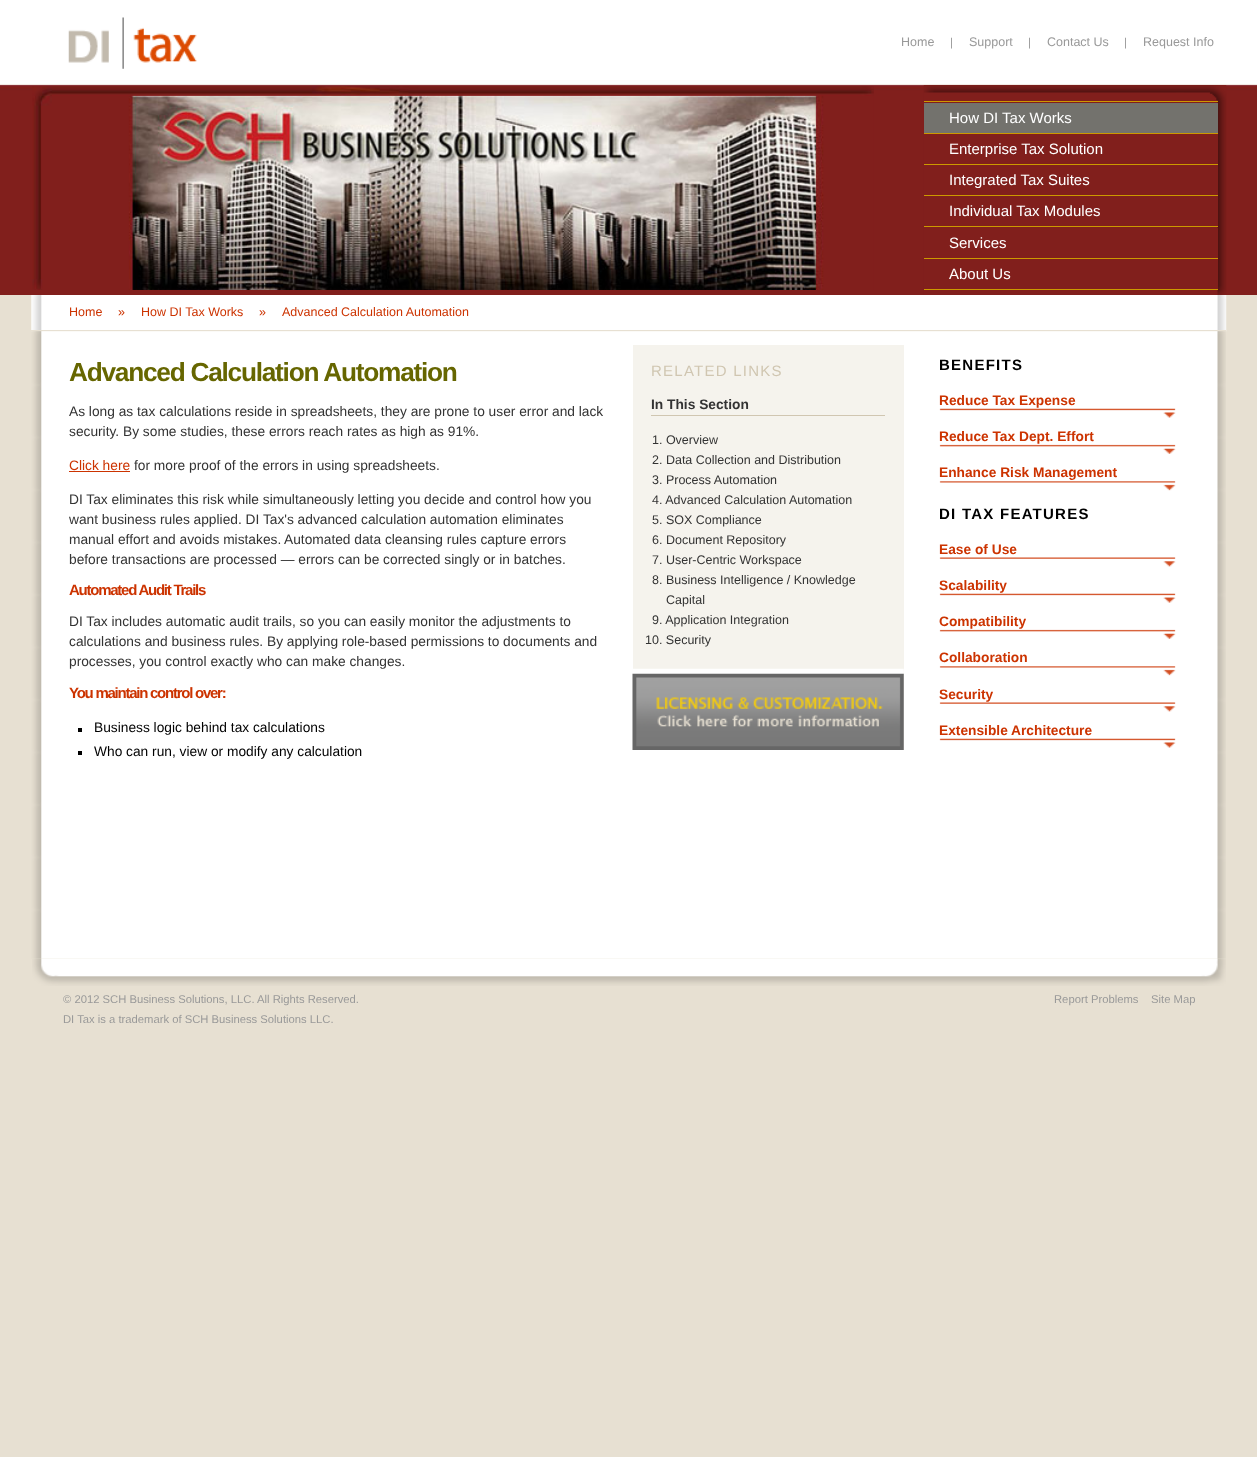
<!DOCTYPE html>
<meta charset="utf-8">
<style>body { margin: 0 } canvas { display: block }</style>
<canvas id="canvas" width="1257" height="1457"></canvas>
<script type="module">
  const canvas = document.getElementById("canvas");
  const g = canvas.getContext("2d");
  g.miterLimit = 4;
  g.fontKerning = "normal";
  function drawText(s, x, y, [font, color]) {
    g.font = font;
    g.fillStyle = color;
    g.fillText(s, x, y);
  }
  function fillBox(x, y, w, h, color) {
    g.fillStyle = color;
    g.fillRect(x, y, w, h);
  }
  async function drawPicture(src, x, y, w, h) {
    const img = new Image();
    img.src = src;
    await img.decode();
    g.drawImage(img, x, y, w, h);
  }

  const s1 = ["12.5px Liberation Sans", "#999999"];
  const s2 = ["11.25px Liberation Sans", "#999999"];
  const s3 = ["15px Liberation Sans", "#FFFFFF"];
  const s4 = ["12.5px Liberation Sans", "#CC3300"];
  const s5 = ["bold 26.25px Liberation Sans", "#666600"];
  const s6 = ["13.75px Liberation Sans", "#333333"];
  const s7 = ["13.75px Liberation Sans", "#CC3300"];
  const s8 = ["bold 15px Liberation Sans", "#CC3300"];
  const s9 = ["13.75px Liberation Sans", "#000000"];
  const s10 = ["15px Liberation Sans", "#D0C6B1"];
  const s11 = ["bold 13.75px Liberation Sans", "#333333"];
  const s12 = ["12.5px Liberation Sans", "#333333"];
  const s13 = ["bold 15px Liberation Sans", "#000000"];
  const s14 = ["bold 13.75px Liberation Sans", "#CC3300"];

  fillBox(0, 0, 1257, 1457, "#E7E0D2");
  await drawPicture("pic1.png", 0, 0, 1257, 295);
  await drawPicture("pic2.png", 68, 17, 129, 52);
  drawText("Home", 901, 46, s1);
  drawText("|", 950, 46, s2);
  drawText("Support", 969, 46, s1);
  drawText("|", 1028, 46, s2);
  drawText("Contact Us", 1047, 46, s1);
  drawText("|", 1124, 46, s2);
  drawText("Request Info", 1143, 46, s1);
  await drawPicture("pic3.png", 32, 86, 842, 204);
  await drawPicture("pic4.png", 923, 85, 304, 210);
  fillBox(924, 289, 294, 1, "#CC9900");
  fillBox(924, 101, 294, 1, "#CC9900");
  fillBox(924, 103, 294, 30, "#73726D");
  drawText("How DI Tax Works", 949, 123, s3);
  fillBox(924, 133, 294, 1, "#CC9900");
  fillBox(1217, 134, 1, 30, "#811F1C");
  drawText("Enterprise Tax Solution", 949, 154, s3);
  fillBox(924, 164, 294, 1, "#CC9900");
  fillBox(1217, 165, 1, 30, "#811F1C");
  drawText("Integrated Tax Suites", 949, 185, s3);
  fillBox(924, 195, 294, 1, "#CC9900");
  fillBox(1027, 196, 191, 30, "#811F1C");
  drawText("Individual Tax Modules", 949, 216, s3);
  fillBox(924, 226, 294, 1, "#CC9900");
  fillBox(1217, 228, 1, 30, "#811F1C");
  drawText("Services", 949, 248, s3);
  fillBox(924, 258, 294, 1, "#CC9900");
  fillBox(973, 259, 245, 30, "#811F1C");
  drawText("About Us", 949, 279, s3);
  await drawPicture("pic5.png", 31, 295, 1196, 37);
  fillBox(31, 330, 1195, 1, "#E7E0D2");
  drawText("Home", 69, 316, s4);
  drawText("»", 118, 316, s4);
  drawText("How DI Tax Works", 141, 316, s4);
  drawText("»", 259, 316, s4);
  drawText("Advanced Calculation Automation", 282, 316, s4);
  await drawPicture("pic6.png", 31, 331, 1195, 628);
  g.letterSpacing = "-1.25px";
  drawText("Advanced Calculation Automation", 69, 381, s5);
  g.letterSpacing = "0px";
  drawText("As long as tax calculations reside in spreadsheets, they are prone to user error and lack", 69, 416, s6);
  drawText("security. By some studies, these errors reach rates as high as 91%.", 69, 436, s6);
  drawText("Click here", 69, 470, s7);
  fillBox(69, 471, 61, 1, "#CC3300");
  drawText("for more proof of the errors in using spreadsheets.", 134, 470, s6);
  drawText("DI Tax eliminates this risk while simultaneously letting you decide and control how you", 69, 504, s6);
  drawText("want business rules applied. DI Tax's advanced calculation automation eliminates", 69, 524, s6);
  drawText("manual effort and avoids mistakes.", 69, 544, s6);
  drawText("Automated data cleansing rules capture errors", 284, 544, s6);
  drawText("before transactions are processed — errors can be corrected singly or in batches.", 69, 564, s6);
  g.letterSpacing = "-1.25px";
  drawText("Automated Audit Trails", 69, 595, s8);
  g.letterSpacing = "0px";
  drawText("DI Tax includes automatic audit trails, so you can easily monitor the adjustments to", 69, 626, s6);
  drawText("calculations and business rules. By applying role-based permissions to documents and", 69, 646, s6);
  drawText("processes, you control exactly who can make changes.", 69, 666, s6);
  g.letterSpacing = "-1.25px";
  drawText("You maintain control over:", 69, 698, s8);
  fillBox(78, 728, 4, 4, "#000000");
  g.letterSpacing = "0px";
  drawText("Business logic behind tax calculations", 94, 732, s9);
  fillBox(78, 751, 4, 4, "#000000");
  drawText("Who can run, view or modify any calculation", 94, 756, s9);
  fillBox(633, 345, 271, 405, "#F5F3ED");
  g.letterSpacing = "1.25px";
  drawText("RELATED LINKS", 651, 376, s10);
  fillBox(651, 415, 234, 1, "#D0C6B1");
  g.letterSpacing = "0px";
  drawText("In This Section", 651, 409, s11);
  drawText("1. Overview", 652, 444, s12);
  drawText("2. Data Collection and Distribution", 652, 464, s12);
  drawText("3. Process Automation", 652, 484, s12);
  drawText("4. Advanced Calculation Automation", 652, 504, s12);
  drawText("5. SOX Compliance", 652, 524, s12);
  drawText("6. Document Repository", 652, 544, s12);
  drawText("7. User-Centric Workspace", 652, 564, s12);
  drawText("8. Business Intelligence / Knowledge", 652, 584, s12);
  drawText("Capital", 666, 604, s12);
  drawText("9. Application Integration", 652, 624, s12);
  drawText("10. Security", 645, 644, s12);
  await drawPicture("pic7.png", 632, 668, 272, 82);
  g.letterSpacing = "1.25px";
  drawText("BENEFITS", 939, 370, s13);
  await drawPicture("pic8.png", 939, 408, 237, 10);
  g.letterSpacing = "0px";
  drawText("Reduce Tax Expense", 939, 405, s14);
  await drawPicture("pic9.png", 939, 444, 237, 10);
  drawText("Reduce Tax Dept. Effort", 939, 441, s14);
  await drawPicture("pic10.png", 939, 481, 237, 10);
  drawText("Enhance Risk Management", 939, 477, s14);
  g.letterSpacing = "1.25px";
  drawText("DI TAX FEATURES", 939, 519, s13);
  await drawPicture("pic11.png", 939, 557, 237, 10);
  g.letterSpacing = "0px";
  drawText("Ease of Use", 939, 554, s14);
  await drawPicture("pic12.png", 939, 593, 237, 10);
  drawText("Scalability", 939, 590, s14);
  await drawPicture("pic9.png", 939, 629, 237, 10);
  drawText("Compatibility", 939, 626, s14);
  await drawPicture("pic10.png", 939, 666, 237, 10);
  drawText("Collaboration", 939, 662, s14);
  await drawPicture("pic11.png", 939, 702, 237, 10);
  drawText("Security", 939, 699, s14);
  await drawPicture("pic8.png", 939, 738, 237, 10);
  drawText("Extensible Architecture", 939, 735, s14);
  await drawPicture("pic13.png", 32, 959, 1194, 27);
  drawText("© 2012 SCH Business Solutions, LLC. All Rights Reserved.", 63, 1003, s2);
  drawText("Report Problems", 1054, 1003, s2);
  drawText("Site Map", 1151, 1003, s2);
  drawText("DI Tax is a trademark of SCH Business Solutions LLC.", 63, 1023, s2);
</script>
